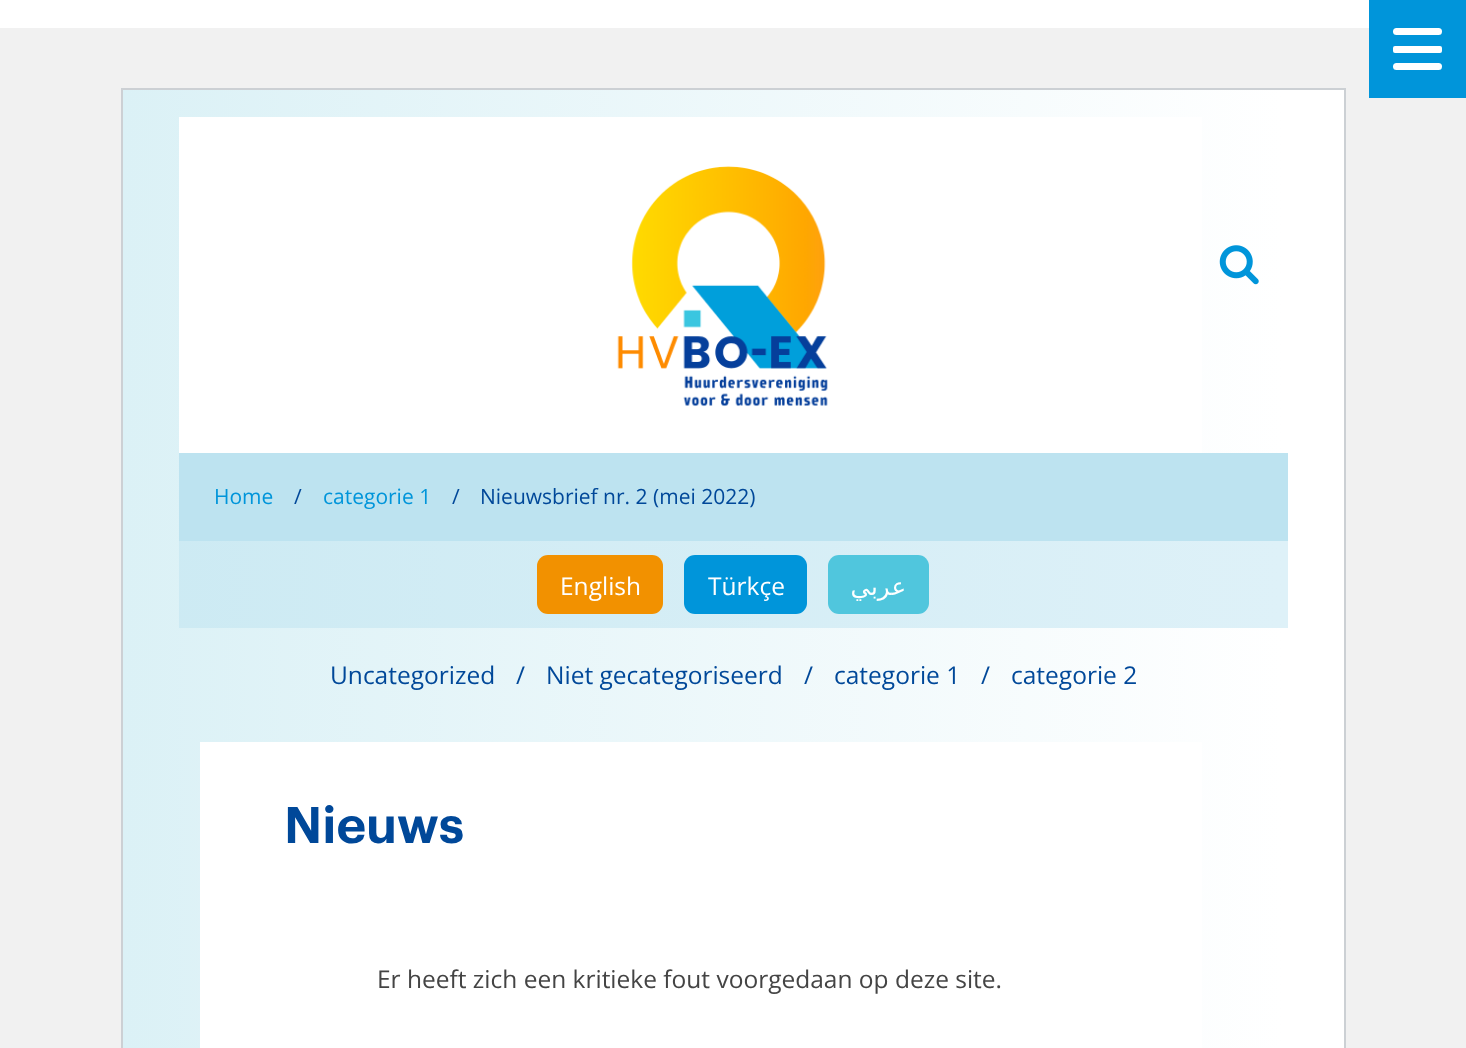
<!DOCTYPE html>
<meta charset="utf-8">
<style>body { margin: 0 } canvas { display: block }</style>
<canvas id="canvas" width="1466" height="1048"></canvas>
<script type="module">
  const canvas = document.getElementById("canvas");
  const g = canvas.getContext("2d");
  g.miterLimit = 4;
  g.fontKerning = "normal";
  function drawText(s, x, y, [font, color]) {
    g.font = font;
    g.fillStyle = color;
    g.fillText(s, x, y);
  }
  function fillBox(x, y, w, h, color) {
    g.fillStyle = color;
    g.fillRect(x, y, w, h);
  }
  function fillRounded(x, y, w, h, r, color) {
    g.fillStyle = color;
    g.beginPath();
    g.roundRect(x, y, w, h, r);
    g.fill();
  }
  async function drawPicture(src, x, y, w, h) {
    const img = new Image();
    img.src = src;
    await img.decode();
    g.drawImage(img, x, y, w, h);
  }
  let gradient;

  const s1 = ["21px Open Sans", "#0095DA"];
  const s2 = ["21px Open Sans", "#004899"];
  const s3 = ["24.5px Open Sans", "#FFFFFF"];
  const s4 = ["24.5px DejaVu Sans", "#FFFFFF"];
  const s5 = ["24.5px Open Sans", "#004899"];
  const s6 = ["600 50.5px Graphik", "#004899"];
  const s7 = ["24.5px Open Sans", "#444444"];

  fillBox(0, 0, 1466, 1048, "#F1F1F1");
  gradient = g.createLinearGradient(123, 747, 1344, 747);
  gradient.addColorStop(0, "#DBF1F6");
  gradient.addColorStop(0.95, "#FFFFFF");
  gradient.addColorStop(1, "#FFFFFF");
  g.fillStyle = gradient;
  g.fillRect(123, 90, 1221, 958);
  gradient = g.createLinearGradient(123, 747, 1344, 747);
  gradient.addColorStop(0, "#CCEAF3");
  gradient.addColorStop(0.95, "#DEF1F8");
  gradient.addColorStop(1, "#DEF1F8");
  g.fillStyle = gradient;
  g.fillRect(179, 541, 1109, 87);
  g.strokeStyle = "#CCD0D4";
  g.lineWidth = 2;
  g.strokeRect(122, 89, 1223, 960);
  fillBox(0, 0, 1369, 28, "#FFFFFF");
  fillBox(1369, 0, 97, 98, "#0095DA");
  fillRounded(1393, 46, 49, 7, 2, "#FFFFFF");
  fillRounded(1393, 28, 49, 7, 3.5, "#FFFFFF");
  fillRounded(1393, 63, 49, 7, 3.5, "#FFFFFF");
  fillBox(179, 117, 1023, 336, "#FFFFFF");
  await drawPicture("pic1.png", 617, 166, 211, 241);
  await drawPicture("pic2.png", 1219, 245, 40, 40);
  fillBox(179, 453, 1109, 88, "#BDE3F0");
  drawText("Home", 214, 504, s1);
  drawText("/", 294, 504, s2);
  drawText("categorie 1", 323, 504, s1);
  drawText("/", 452, 504, s2);
  drawText("Nieuwsbrief nr. 2 (mei 2022)", 480, 504, s2);
  fillRounded(537, 555, 126, 59, 11, "#F29100");
  drawText("English", 560, 595, s3);
  fillRounded(684, 555, 123, 59, 11, "#0095DA");
  drawText("Türkçe", 708, 595, s3);
  fillRounded(828, 555, 101, 59, 11, "#50C6DD");
  g.direction = "rtl";
  drawText("عربي", 906, 595, s4);
  g.direction = "ltr";
  drawText("Uncategorized", 330, 684, s5);
  drawText("/", 516, 684, s5);
  drawText("Niet gecategoriseerd", 546, 684, s5);
  drawText("/", 804, 684, s5);
  drawText("categorie 1", 834, 684, s5);
  drawText("/", 981, 684, s5);
  drawText("categorie 2", 1011, 684, s5);
  fillBox(200, 742, 1002, 306, "#FFFFFF");
  drawText("Nieuws", 284, 843, s6);
  drawText("Er heeft zich een kritieke fout voorgedaan op deze site.", 377, 988, s7);
</script>
